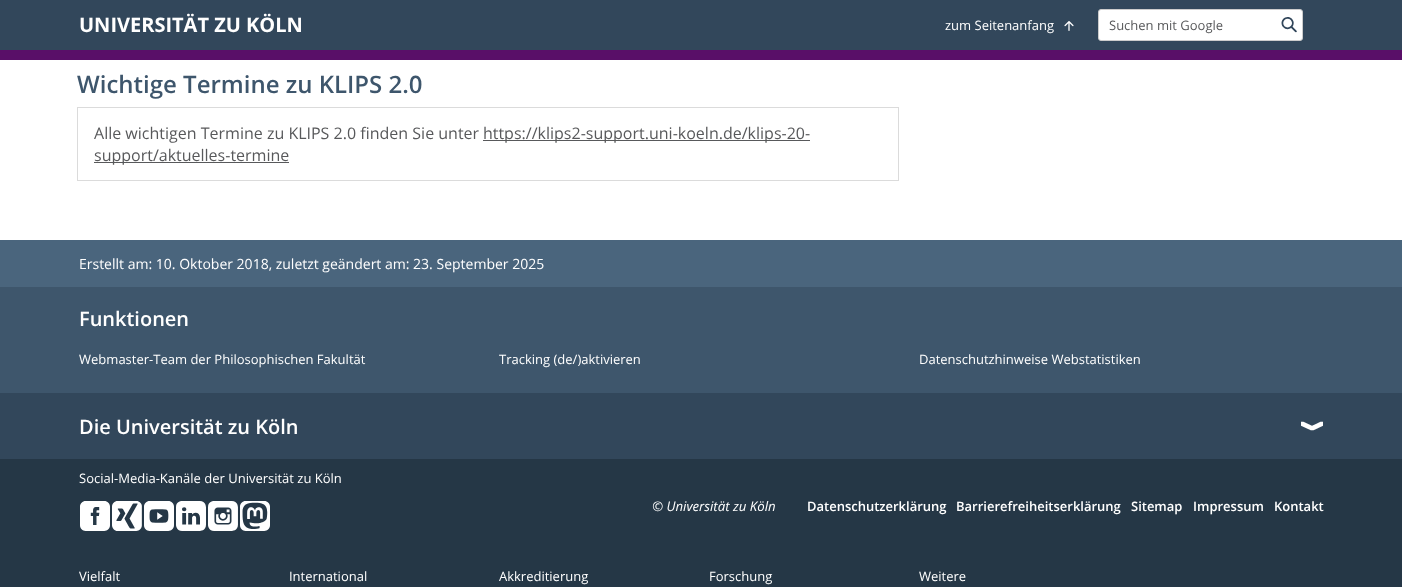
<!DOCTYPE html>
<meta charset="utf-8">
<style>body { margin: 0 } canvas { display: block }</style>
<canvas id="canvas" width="1402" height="587"></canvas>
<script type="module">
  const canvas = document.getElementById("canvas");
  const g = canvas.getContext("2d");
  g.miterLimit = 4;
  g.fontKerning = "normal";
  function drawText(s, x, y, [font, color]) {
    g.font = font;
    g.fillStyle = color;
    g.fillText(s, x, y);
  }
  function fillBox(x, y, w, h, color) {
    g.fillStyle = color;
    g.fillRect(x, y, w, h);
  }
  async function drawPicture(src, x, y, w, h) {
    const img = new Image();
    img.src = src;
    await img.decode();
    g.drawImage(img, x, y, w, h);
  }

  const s1 = ["bold 20px Open Sans", "#FFFFFF"];
  const s2 = ["13px Open Sans", "#FFFFFF"];
  const s3 = ["13px Open Sans", "#58595B"];
  const s4 = ["600 24px Open Sans", "#3E566C"];
  const s5 = ["16px Open Sans", "#58595B"];
  const s6 = ["14px Open Sans", "#FFFFFF"];
  const s7 = ["600 20px Open Sans", "#FFFFFF"];
  const s8 = ["italic 13.25px Open Sans", "#FFFFFF"];
  const s9 = ["600 13px Open Sans", "#FFFFFF"];

  fillBox(0, 0, 1402, 587, "#FFFFFF");
  fillBox(0, 0, 1402, 50, "#32475B");
  fillBox(0, 50, 1402, 10, "#590F68");
  drawText("UNIVERSITÄT ZU KÖLN", 79, 32, s1);
  await drawPicture("pic1.png", 1064, 21, 10, 10);
  drawText("zum Seitenanfang", 945, 30, s2);
  g.beginPath();
  g.roundRect(1098.5, 9.5, 204, 31, 2.5);
  g.fill();
  g.strokeStyle = "#CCCCCC";
  g.stroke();
  drawText("Suchen mit Google", 1109, 30, s3);
  await drawPicture("pic2.png", 1281, 17, 16, 16);
  drawText("Wichtige Termine zu KLIPS 2.0", 77, 93, s4);
  g.strokeStyle = "#DBDBDB";
  g.strokeRect(77.5, 107.5, 821, 73);
  drawText("Alle wichtigen Termine zu KLIPS 2.0 finden Sie unter", 94, 139, s5);
  fillBox(483, 140, 327, 1, "#58595B");
  drawText("https://klips2-support.uni-koeln.de/klips-20-", 483, 139, s5);
  fillBox(94, 162, 195, 1, "#58595B");
  drawText("support/aktuelles-termine", 94, 161, s5);
  fillBox(0, 240, 1402, 47, "#4A657D");
  drawText("Erstellt am: 10. Oktober 2018, zuletzt geändert am: 23. September 2025", 79, 269, s6);
  fillBox(0, 287, 1402, 106, "#3E566C");
  drawText("Funktionen", 79, 326, s7);
  drawText("Webmaster-Team der Philosophischen Fakultät", 79, 364, s2);
  drawText("Tracking (de/)aktivieren", 499, 364, s2);
  drawText("Datenschutzhinweise Webstatistiken", 919, 364, s2);
  fillBox(0, 393, 1402, 66, "#32475B");
  await drawPicture("pic3.png", 1301, 421, 22, 10);
  drawText("Die Universität zu Köln", 79, 434, s7);
  fillBox(0, 459, 1402, 128, "#253746");
  drawText("Social-Media-Kanäle der Universität zu Köln", 79, 483, s2);
  await drawPicture("pic4.png", 80, 501, 30, 30);
  await drawPicture("pic5.png", 112, 501, 30, 30);
  await drawPicture("pic6.png", 144, 501, 30, 30);
  await drawPicture("pic7.png", 176, 501, 30, 30);
  await drawPicture("pic8.png", 208, 501, 30, 30);
  await drawPicture("pic9.png", 240, 501, 30, 30);
  drawText("© Universität zu Köln", 652, 511, s8);
  drawText("Datenschutzerklärung", 807, 511, s9);
  drawText("Barrierefreiheitserklärung", 956, 511, s9);
  drawText("Sitemap", 1131, 511, s9);
  drawText("Impressum", 1193, 511, s9);
  drawText("Kontakt", 1274, 511, s9);
  drawText("Vielfalt", 79, 581, s2);
  drawText("International", 289, 581, s2);
  drawText("Akkreditierung", 499, 581, s2);
  drawText("Forschung", 709, 581, s2);
  drawText("Weitere", 919, 581, s2);
</script>
